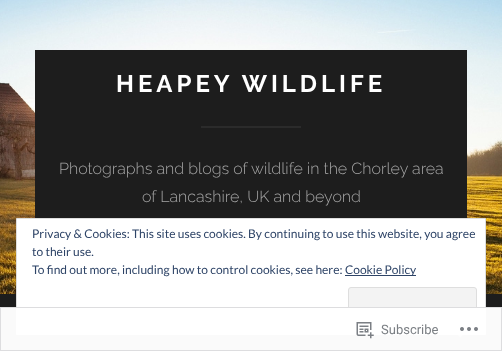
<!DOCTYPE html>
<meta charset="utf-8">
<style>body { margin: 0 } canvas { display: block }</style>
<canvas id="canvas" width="502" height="351"></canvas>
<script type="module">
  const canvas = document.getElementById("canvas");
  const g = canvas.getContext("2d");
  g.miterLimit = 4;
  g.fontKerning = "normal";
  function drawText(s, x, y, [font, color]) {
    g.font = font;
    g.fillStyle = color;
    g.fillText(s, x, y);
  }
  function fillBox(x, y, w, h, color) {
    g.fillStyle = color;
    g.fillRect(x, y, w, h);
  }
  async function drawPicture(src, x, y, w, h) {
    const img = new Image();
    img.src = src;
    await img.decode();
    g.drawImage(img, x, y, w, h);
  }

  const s1 = ["bold 24px Raleway", "#FFFFFF"];
  const s2 = ["300 16px Raleway", "#A5A5A5"];
  const s3 = ["12px Lato", "#2E4467"];
  const s4 = ["13px Roboto", "#7B7F84"];

  fillBox(0, 0, 502, 351, "#FFFFFF");
  await drawPicture("pic1.png", 0, 0, 502, 294);
  fillBox(35, 50, 432, 168, "#1D1D1D");
  g.letterSpacing = "4px";
  drawText("HEAPEY WILDLIFE", 116, 92, s1);
  fillBox(201, 126, 100, 2, "#2B2B2B");
  g.letterSpacing = "0px";
  drawText("Photographs and blogs of wildlife in the Chorley area", 59, 174, s2);
  drawText("of Lancashire, UK and beyond", 142, 202, s2);
  fillBox(0, 294, 502, 57, "#1D1D1D");
  await drawPicture("pic2.png", 458, 335, 5, 3);
  g.fillStyle = "#FFFFFF";
  g.beginPath();
  g.rect(16.5, 218.5, 469, 116);
  g.fill();
  g.strokeStyle = "#DEDEDE";
  g.stroke();
  drawText("Privacy & Cookies: This site uses cookies. By continuing to use this website, you agree", 32, 238, s3);
  drawText("to their use.", 32, 256, s3);
  drawText("To find out more, including how to control cookies, see here:", 32, 274, s3);
  fillBox(345, 275, 71, 1, "#2E4467");
  drawText("Cookie Policy", 345, 274, s3);
  g.fillStyle = "#F3F3F3";
  g.beginPath();
  g.roundRect(348.5, 287.5, 128, 38, 2.5);
  g.fill();
  g.stroke();
  fillBox(0, 307, 502, 44, "rgba(255, 255, 255, 0.98)");
  g.strokeStyle = "rgba(220, 220, 222, 0.98)";
  g.strokeRect(0.5, 307.5, 501, 43);
  await drawPicture("pic3.png", 356, 322, 18, 17);
  drawText("Subscribe", 381, 334, s4);
  await drawPicture("pic4.png", 460, 327, 18, 4);
</script>
